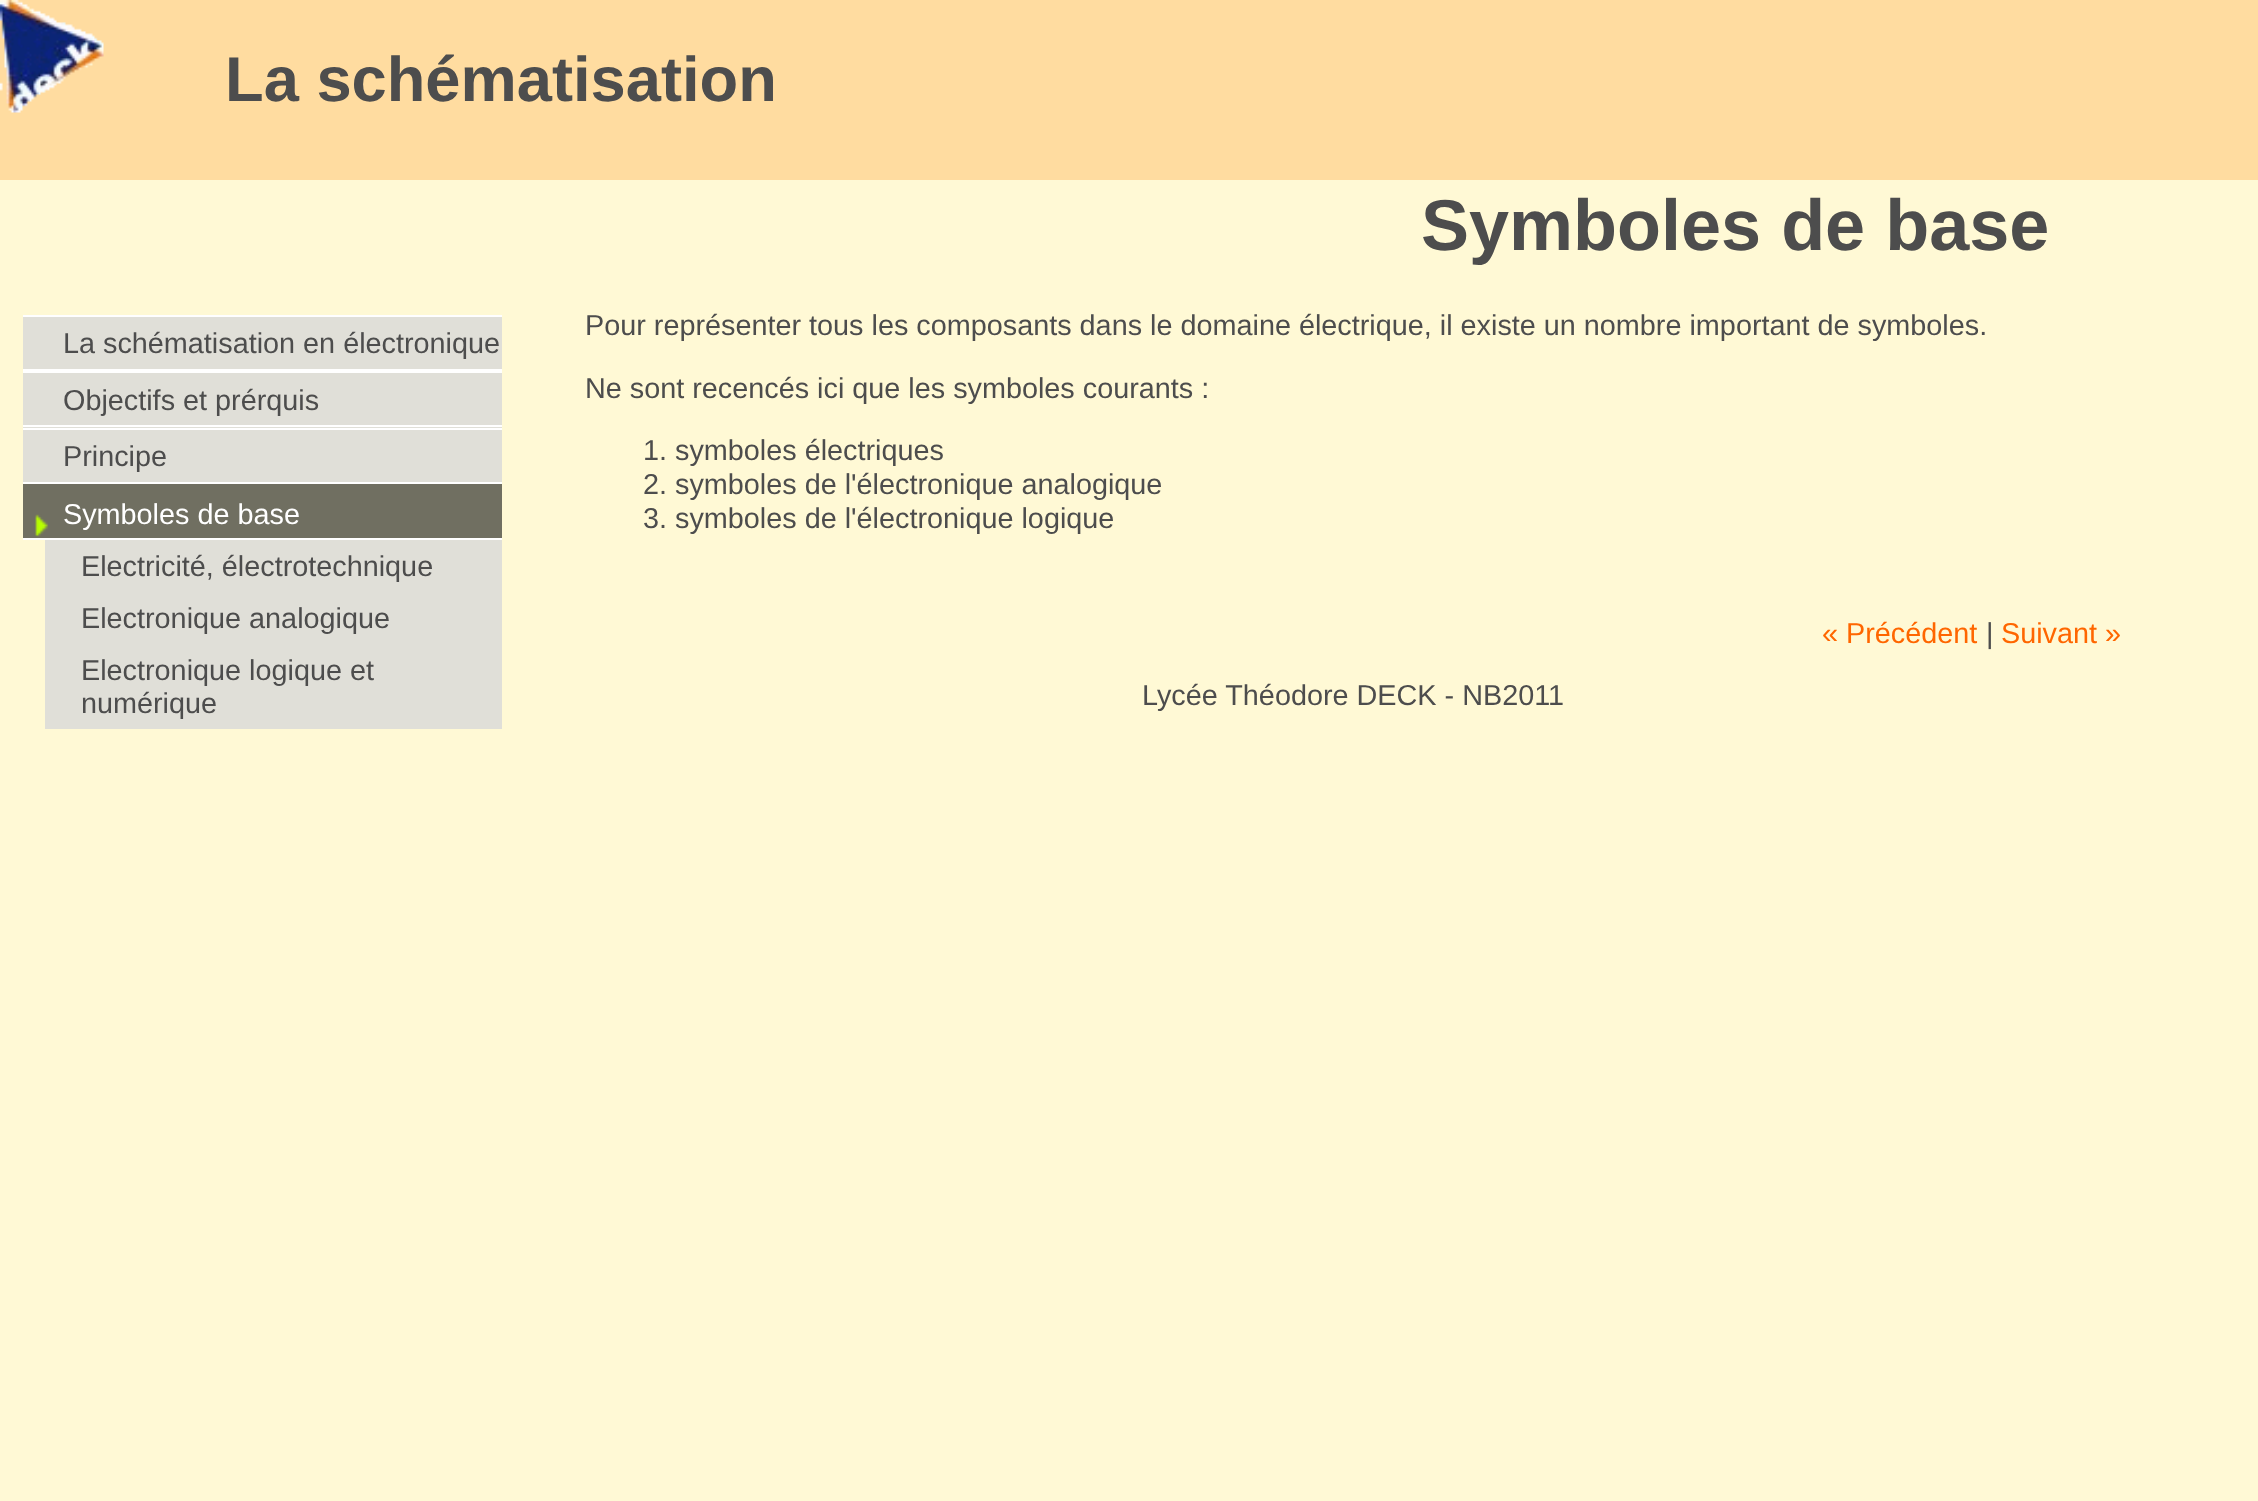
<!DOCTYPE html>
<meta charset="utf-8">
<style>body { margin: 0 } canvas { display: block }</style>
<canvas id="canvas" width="2258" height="1501"></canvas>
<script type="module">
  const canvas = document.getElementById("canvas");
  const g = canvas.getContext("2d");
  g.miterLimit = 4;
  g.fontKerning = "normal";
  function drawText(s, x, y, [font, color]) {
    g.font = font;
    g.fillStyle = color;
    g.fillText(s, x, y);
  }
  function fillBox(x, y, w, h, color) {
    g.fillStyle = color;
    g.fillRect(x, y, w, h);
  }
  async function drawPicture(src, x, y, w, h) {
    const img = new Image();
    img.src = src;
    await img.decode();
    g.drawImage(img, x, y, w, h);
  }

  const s1 = ["bold 63.25px Liberation Sans", "#4D4D4D"];
  const s2 = ["28.8px Liberation Sans", "#4D4D4D"];
  const s3 = ["28.8px Liberation Sans", "#FFFFFF"];
  const s4 = ["bold 72px Liberation Sans", "#4D4D4D"];
  const s5 = ["28.8px Liberation Sans", "#FF6600"];

  fillBox(0, 0, 2258, 1501, "#FFF9D5");
  fillBox(0, 0, 2258, 180, "#FFDCA0");
  await drawPicture("pic1.png", 0, 0, 104, 113);
  drawText("La schématisation", 225, 101, s1);
  fillBox(23, 317, 479, 52, "#E0DFD8");
  fillBox(23, 315, 479, 2, "#FFFFFF");
  fillBox(23, 369, 479, 4, "#FFFFFF");
  drawText("La schématisation en électronique", 63, 353, s2);
  fillBox(23, 373, 479, 55, "#E0DFD8");
  fillBox(23, 425, 479, 2, "#FFFFFF");
  drawText("Objectifs et prérquis", 63, 410, s2);
  fillBox(23, 430, 479, 52, "#E0DFD8");
  fillBox(23, 428, 479, 2, "#FFFFFF");
  fillBox(23, 482, 479, 2, "#FFFFFF");
  drawText("Principe", 63, 466, s2);
  fillBox(23, 484, 479, 54, "#706F61");
  await drawPicture("pic2.png", 35, 514, 13, 23);
  fillBox(23, 538, 479, 2, "#FFFFFF");
  drawText("Symboles de base", 63, 524, s3);
  fillBox(45, 540, 457, 189, "#E0DFD8");
  drawText("Electricité, électrotechnique", 81, 576, s2);
  drawText("Electronique analogique", 81, 628, s2);
  drawText("Electronique logique et", 81, 680, s2);
  drawText("numérique", 81, 713, s2);
  drawText("Symboles de base", 1421, 250, s4);
  drawText("Pour représenter tous les composants dans le domaine électrique, il existe un nombre important de symboles.", 585, 335, s2);
  drawText("Ne sont recencés ici que les symboles courants :", 585, 398, s2);
  drawText("1. symboles électriques", 643, 460, s2);
  drawText("2. symboles de l'électronique analogique", 643, 494, s2);
  drawText("3. symboles de l'électronique logique", 643, 528, s2);
  drawText("« Précédent", 1822, 643, s5);
  drawText("|", 1986, 643, s2);
  drawText("Suivant »", 2001, 643, s5);
  drawText("Lycée Théodore DECK - NB2011", 1142, 705, s2);
</script>
